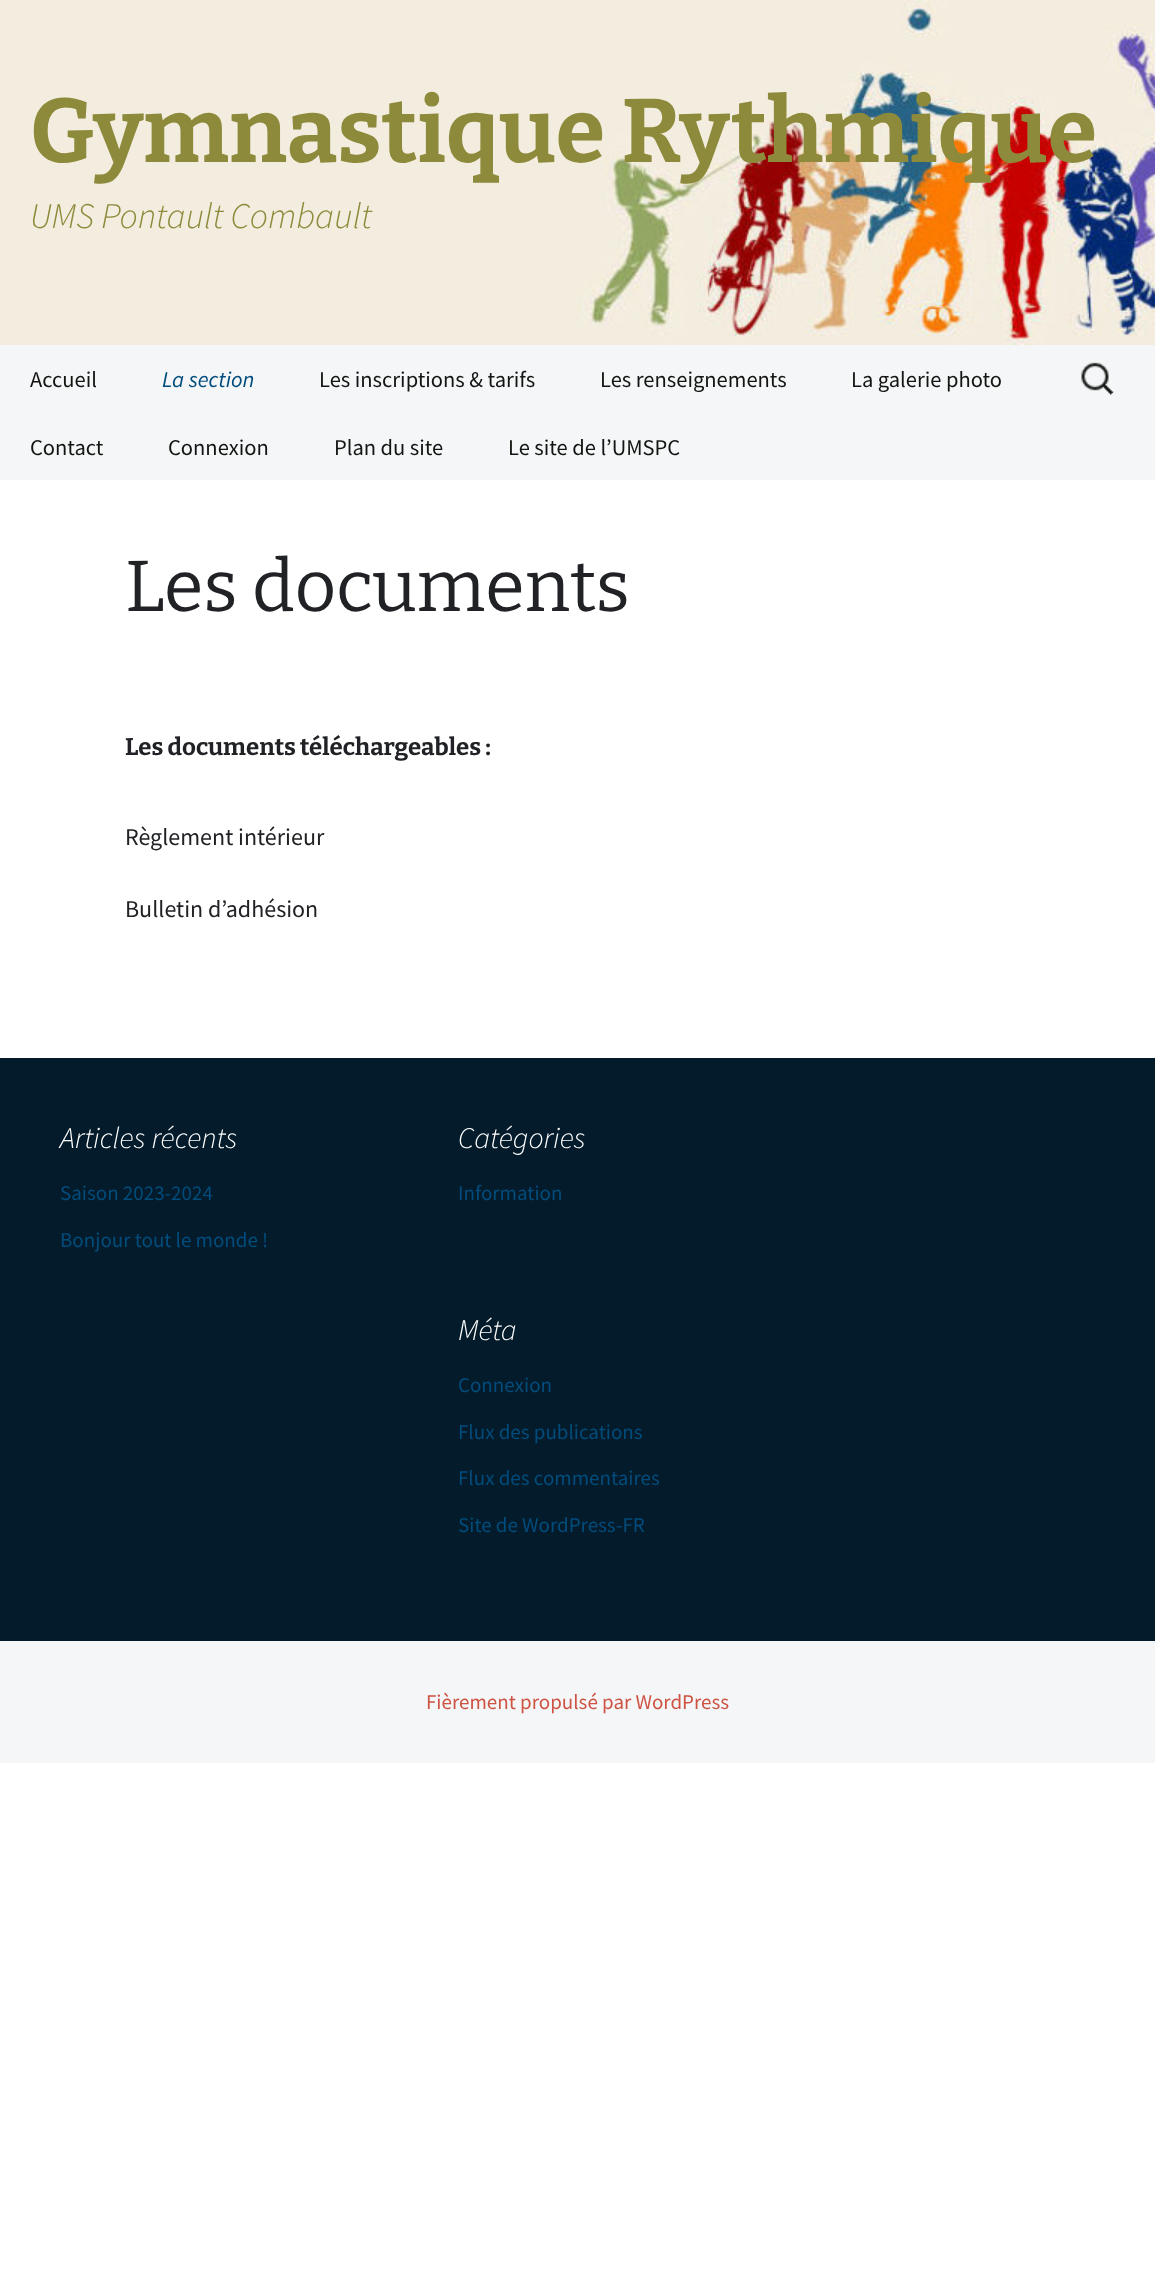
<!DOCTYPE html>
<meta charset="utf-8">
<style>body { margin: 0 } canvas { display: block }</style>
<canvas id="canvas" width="1155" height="2274"></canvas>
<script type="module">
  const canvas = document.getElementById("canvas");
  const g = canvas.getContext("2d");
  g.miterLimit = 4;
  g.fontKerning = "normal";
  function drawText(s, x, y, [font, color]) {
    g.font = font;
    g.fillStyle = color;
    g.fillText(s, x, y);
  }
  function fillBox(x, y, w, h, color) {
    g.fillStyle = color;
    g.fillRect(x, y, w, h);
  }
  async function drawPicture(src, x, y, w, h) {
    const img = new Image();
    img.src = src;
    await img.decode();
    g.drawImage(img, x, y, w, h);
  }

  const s1 = ["100 90px Bitter", "#8E8A3B"];
  const s2 = ["italic 300 36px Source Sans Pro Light", "#8E8A3B"];
  const s3 = ["22.5px Source Sans Pro", "#141412"];
  const s4 = ["italic 22.5px Source Sans Pro", "#004C7C"];
  const s5 = ["100 72px 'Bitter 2'", "#202225"];
  const s6 = ["100 24px Bitter", "#202225"];
  const s7 = ["24px Source Sans Pro", "#202225"];
  const s8 = ["italic 300 30px Source Sans Pro Light", "#FFFFFF"];
  const s9 = ["21px Source Sans Pro", "#004C7C"];
  const s10 = ["21px Source Sans Pro", "#CE5343"];

  fillBox(0, 0, 1155, 2274, "#FFFFFF");
  await drawPicture("pic1.png", 0, 0, 1155, 345);
  drawText("Gymnastique Rythmique", 30, 162, s1);
  drawText("UMS Pontault Combault", 30, 228, s2);
  fillBox(0, 345, 1155, 135, "#F4F6F8");
  drawText("Accueil", 30, 387, s3);
  drawText("La section", 162, 387, s4);
  drawText("Les inscriptions & tarifs", 319, 387, s3);
  drawText("Les renseignements", 600, 387, s3);
  drawText("La galerie photo", 851, 387, s3);
  drawText("Contact", 30, 455, s3);
  drawText("Connexion", 168, 455, s3);
  drawText("Plan du site", 334, 455, s3);
  drawText("Le site de l’UMSPC", 508, 455, s3);
  await drawPicture("pic2.png", 1081, 362, 33, 33);
  drawText("Les documents", 125, 611, s5);
  drawText("Les documents téléchargeables :", 125, 755, s6);
  drawText("Règlement intérieur", 125, 845, s7);
  drawText("Bulletin d’adhésion", 125, 917, s7);
  fillBox(0, 1641, 1155, 122, "#F4F6F8");
  fillBox(0, 1058, 1155, 583, "#031B2A");
  drawText("Articles récents", 60, 1148, s8);
  drawText("Saison 2023-2024", 60, 1200, s9);
  drawText("Bonjour tout le monde !", 60, 1247, s9);
  drawText("Catégories", 458, 1148, s8);
  drawText("Information", 458, 1200, s9);
  drawText("Méta", 458, 1340, s8);
  drawText("Connexion", 458, 1392, s9);
  drawText("Flux des publications", 458, 1439, s9);
  drawText("Flux des commentaires", 458, 1485, s9);
  drawText("Site de WordPress-FR", 458, 1532, s9);
  drawText("Fièrement propulsé par WordPress", 426, 1709, s10);
</script>
